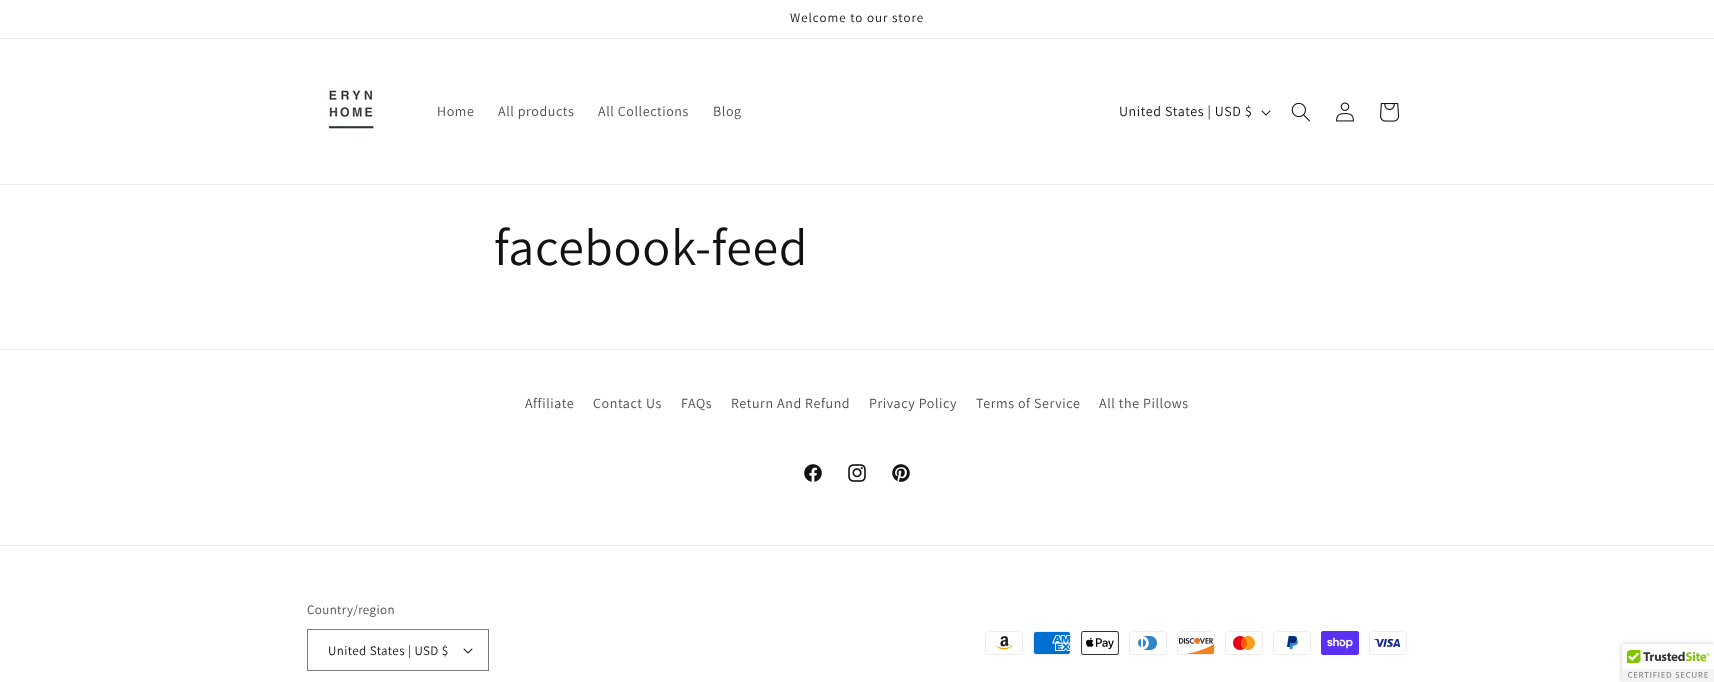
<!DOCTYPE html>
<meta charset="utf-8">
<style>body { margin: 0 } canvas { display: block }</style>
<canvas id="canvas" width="1714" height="682"></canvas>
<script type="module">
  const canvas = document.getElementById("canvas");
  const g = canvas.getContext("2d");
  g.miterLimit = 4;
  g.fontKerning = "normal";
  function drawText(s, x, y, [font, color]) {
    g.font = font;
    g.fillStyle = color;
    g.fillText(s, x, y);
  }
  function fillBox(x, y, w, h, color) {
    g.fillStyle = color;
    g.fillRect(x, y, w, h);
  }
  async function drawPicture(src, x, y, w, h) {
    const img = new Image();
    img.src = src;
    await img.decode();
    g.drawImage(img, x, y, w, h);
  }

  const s1 = ["13px Assistant", "#121212"];
  const s2 = ["14px Assistant", "#4D4D4D"];
  const s3 = ["14px Assistant", "#121212"];
  const s4 = ["52px Assistant", "#121212"];
  const s5 = ["13px Assistant", "#4D4D4D"];

  fillBox(0, 0, 1714, 682, "#FFFFFF");
  fillBox(0, 38, 1714, 1, "#ECECEC");
  g.letterSpacing = "1px";
  drawText("Welcome to our store", 790, 22, s1);
  fillBox(0, 184, 1714, 1, "#ECECEC");
  await drawPicture("pic1.png", 327, 87, 48, 44);
  g.letterSpacing = "0.6px";
  drawText("Home", 437, 116, s2);
  drawText("All products", 498, 116, s2);
  drawText("All Collections", 598, 116, s2);
  drawText("Blog", 713, 116, s2);
  drawText("United States | USD $", 1119, 116, s3);
  await drawPicture("pic2.png", 1261, 110, 10, 6);
  await drawPicture("pic3.png", 1291, 102, 19, 20);
  await drawPicture("pic4.png", 1336, 102, 18, 20);
  await drawPicture("pic5.png", 1380, 103, 20, 19);
  drawText("facebook-feed", 494, 265, s4);
  fillBox(0, 349, 1714, 1, "#ECECEC");
  drawText("Affiliate", 525, 408, s2);
  drawText("Contact Us", 593, 408, s2);
  drawText("FAQs", 681, 408, s2);
  drawText("Return And Refund", 731, 408, s2);
  drawText("Privacy Policy", 869, 408, s2);
  drawText("Terms of Service", 976, 408, s2);
  drawText("All the Pillows", 1099, 408, s2);
  await drawPicture("pic6.png", 804, 464, 18, 18);
  await drawPicture("pic7.png", 848, 464, 18, 18);
  await drawPicture("pic8.png", 892, 464, 18, 18);
  fillBox(0, 545, 1714, 1, "#ECECEC");
  g.letterSpacing = "0.4px";
  drawText("Country/region", 307, 614, s5);
  await drawPicture("pic2.png", 463, 648, 10, 6);
  g.strokeStyle = "#7D7D7D";
  g.strokeRect(307.5, 629.5, 181, 41);
  drawText("United States | USD $", 328, 655, s1);
  await drawPicture("pic9.png", 985, 631, 38, 24);
  await drawPicture("pic10.png", 1033, 631, 38, 24);
  await drawPicture("pic11.png", 1081, 631, 38, 24);
  await drawPicture("pic12.png", 1129, 631, 38, 24);
  await drawPicture("pic13.png", 1177, 631, 38, 24);
  await drawPicture("pic14.png", 1225, 631, 38, 24);
  await drawPicture("pic15.png", 1273, 631, 38, 24);
  await drawPicture("pic16.png", 1321, 631, 38, 24);
  await drawPicture("pic17.png", 1369, 631, 38, 24);
  g.fillStyle = "rgba(0, 0, 0, 0.2)";
  g.filter = "blur(2.5px)";
  g.beginPath();
  g.roundRect(1622, 644, 92, 38, 2);
  g.fill();
  g.filter = "none";
  g.fillStyle = "#FFFFFF";
  g.beginPath();
  g.roundRect(1622, 644, 92, 38, [2, 0, 0, 0]);
  g.fill();
  await drawPicture("pic18.png", 1622, 644, 92, 38);
</script>
